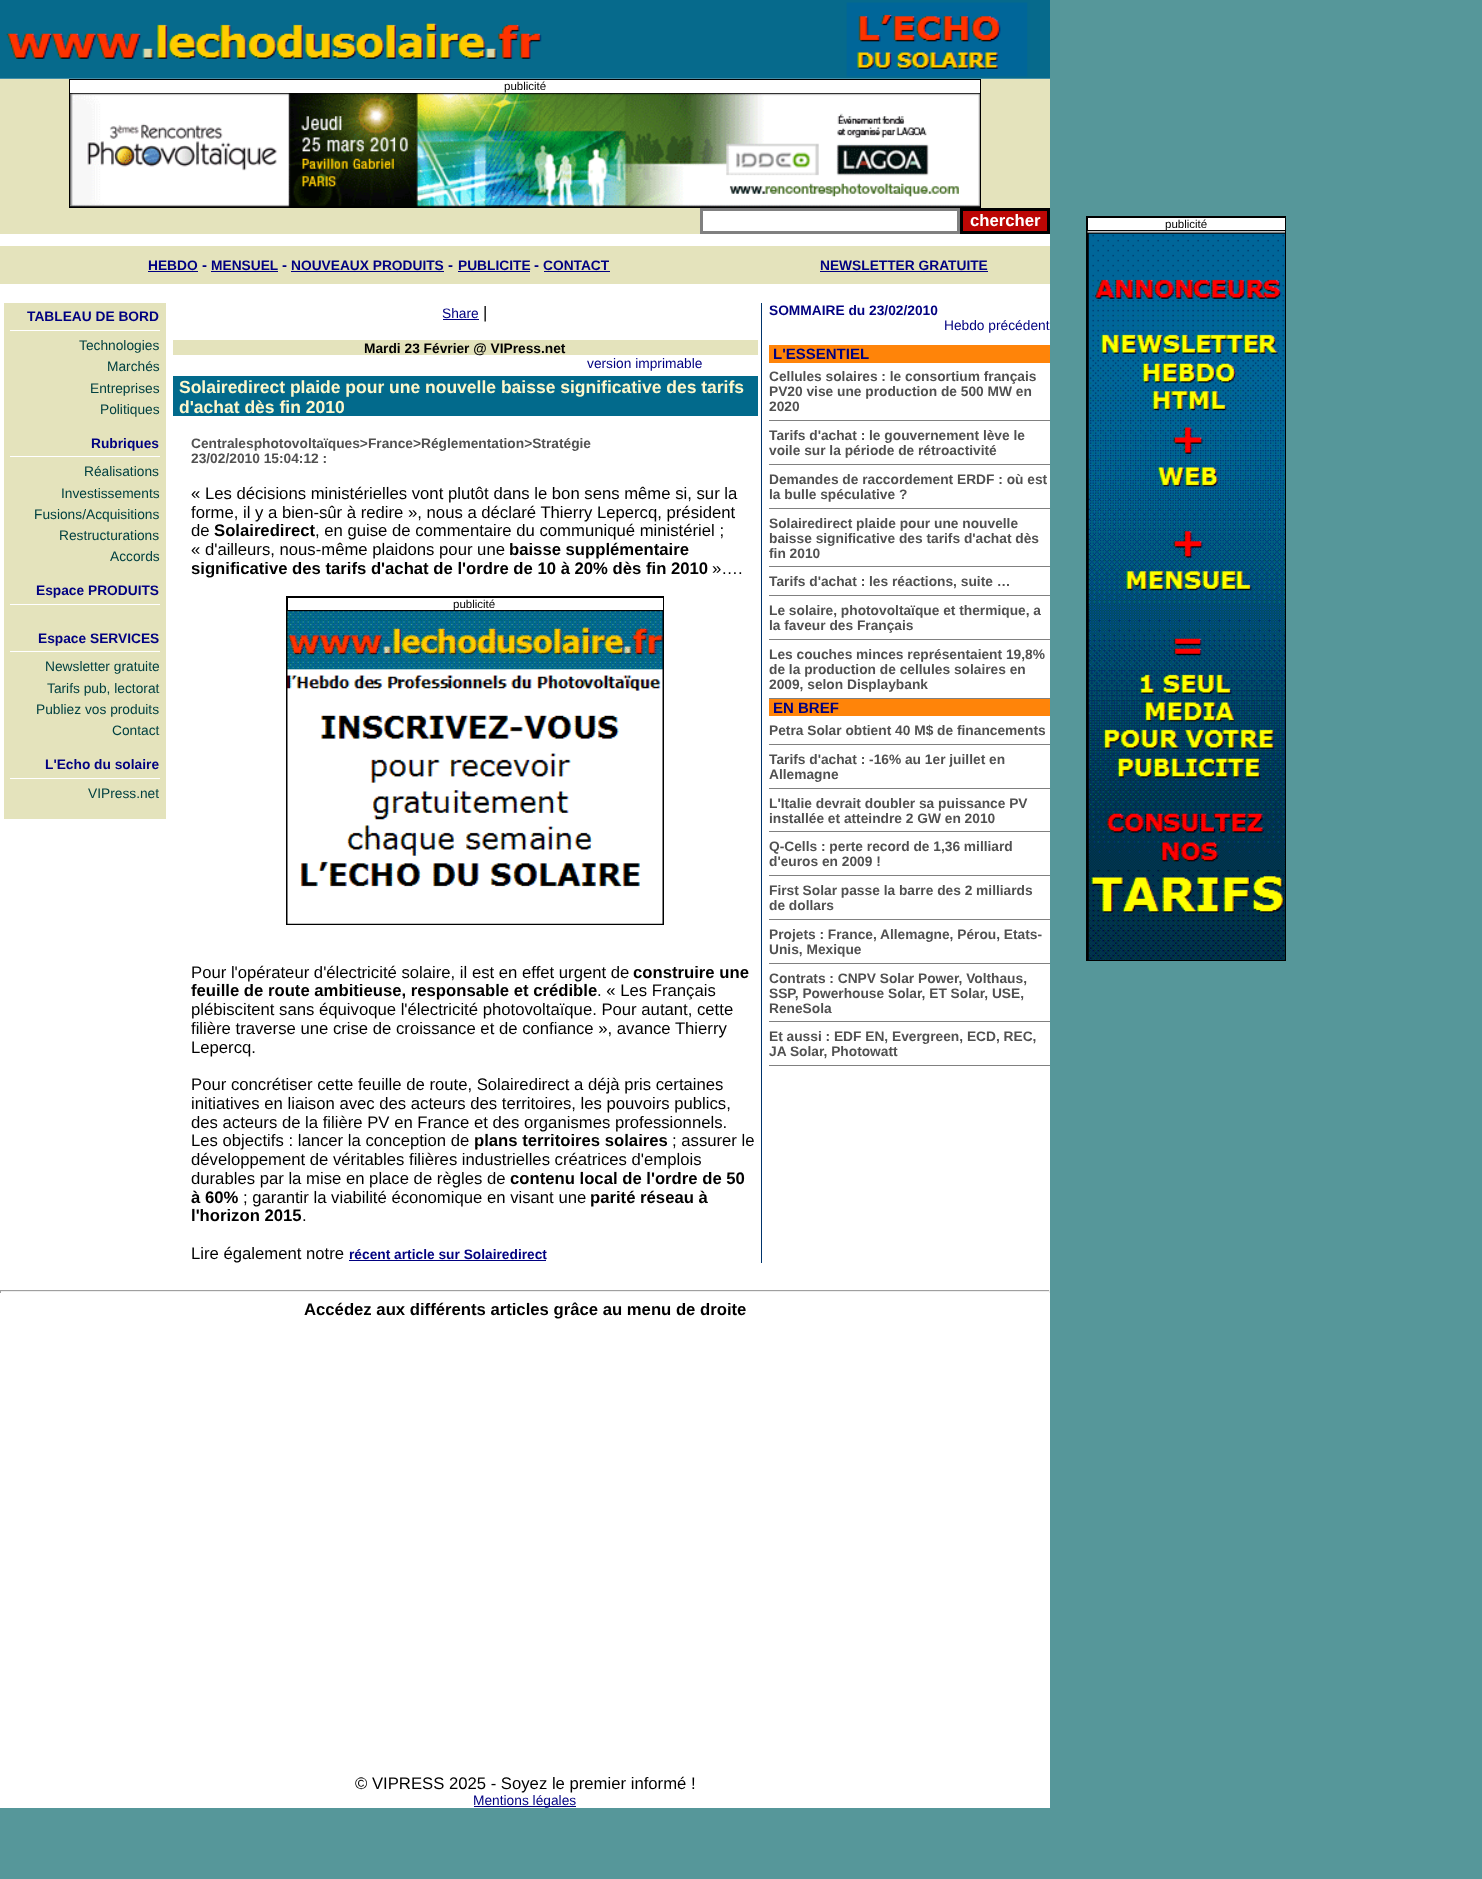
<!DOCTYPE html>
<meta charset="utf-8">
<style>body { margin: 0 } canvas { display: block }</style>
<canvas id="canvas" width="1482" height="1879"></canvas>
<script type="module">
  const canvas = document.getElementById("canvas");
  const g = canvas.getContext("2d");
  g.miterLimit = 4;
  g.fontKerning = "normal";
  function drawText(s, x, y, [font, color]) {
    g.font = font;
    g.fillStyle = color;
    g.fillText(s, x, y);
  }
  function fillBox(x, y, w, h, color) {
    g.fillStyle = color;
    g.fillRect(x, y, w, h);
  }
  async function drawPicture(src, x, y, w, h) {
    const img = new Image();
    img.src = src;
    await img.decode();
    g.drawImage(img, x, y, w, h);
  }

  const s1 = ["11.5px Liberation Sans", "#000000"];
  const s2 = ["bold 16.7px Liberation Sans", "#FFFFFF"];
  const s3 = ["bold 13.75px Liberation Sans", "#000080"];
  const s4 = ["13.75px Liberation Sans", "#004040"];
  const s5 = ["13.75px Liberation Sans", "#000080"];
  const s6 = ["16.7px Liberation Sans", "#000000"];
  const s7 = ["bold 13.75px Liberation Sans", "#000000"];
  const s8 = ["bold 17.5px Liberation Sans", "#FEF8CB"];
  const s9 = ["bold 13.75px Liberation Sans", "#515151"];
  const s10 = ["bold 16.7px Liberation Sans", "#000000"];
  const s11 = ["bold 15px Liberation Sans", "#000080"];

  fillBox(0, 0, 1482, 1879, "#56979A");
  fillBox(0, 78, 1050, 1730, "#FFFFFF");
  await drawPicture("pic1.png", 0, 0, 1050, 79);
  fillBox(0, 79, 1050, 129, "#E4E3BC");
  fillBox(69, 79, 912, 129, "#000000");
  fillBox(70, 80, 910, 13, "#FFFFFF");
  drawText("publicité", 504, 90, s1);
  await drawPicture("pic2.png", 70, 93, 910, 114);
  fillBox(0, 208, 700, 26, "#E4E3BC");
  g.strokeStyle = "#808080";
  g.lineWidth = 3;
  g.strokeRect(701.5, 209.5, 257, 23);
  g.fillStyle = "#BC0604";
  g.beginPath();
  g.rect(961.5, 209.5, 87, 23);
  g.fill();
  g.strokeStyle = "#000000";
  g.stroke();
  drawText("chercher", 970, 226, s2);
  fillBox(4, 303, 162, 516, "#E4E3BC");
  drawText("TABLEAU DE BORD", 27, 321, s3);
  fillBox(10, 330, 150, 1, "#FFFFFF");
  drawText("Technologies", 79, 350, s4);
  drawText("Marchés", 107, 371, s4);
  drawText("Entreprises", 90, 393, s4);
  drawText("Politiques", 100, 414, s4);
  drawText("Rubriques", 91, 448, s3);
  fillBox(10, 456, 150, 1, "#FFFFFF");
  drawText("Réalisations", 84, 476, s4);
  drawText("Investissements", 61, 498, s4);
  drawText("Fusions/Acquisitions", 34, 519, s4);
  drawText("Restructurations", 59, 540, s4);
  drawText("Accords", 110, 561, s4);
  drawText("Espace PRODUITS", 36, 595, s3);
  fillBox(10, 604, 150, 1, "#FFFFFF");
  drawText("Espace SERVICES", 38, 643, s3);
  fillBox(10, 651, 150, 1, "#FFFFFF");
  drawText("Newsletter gratuite", 45, 671, s4);
  drawText("Tarifs pub, lectorat", 47, 693, s4);
  drawText("Publiez vos produits", 36, 714, s4);
  drawText("Contact", 112, 735, s4);
  drawText("L'Echo du solaire", 45, 769, s3);
  fillBox(10, 778, 150, 1, "#FFFFFF");
  drawText("VIPress.net", 88, 798, s4);
  drawText("Share", 442, 318, s5);
  fillBox(443, 319, 36, 1, "#000080");
  drawText("|", 483, 318, s6);
  fillBox(173, 340, 585, 15, "#E4E3BC");
  drawText("Mardi 23 Février @ VIPress.net", 364, 353, s7);
  drawText("version imprimable", 587, 368, s5);
  fillBox(173, 376, 585, 40, "#026A8C");
  drawText("Solairedirect plaide pour une nouvelle baisse significative des tarifs", 179, 393, s8);
  drawText("d'achat dès fin 2010", 179, 413, s8);
  drawText("Centralesphotovoltaïques>France>Réglementation>Stratégie", 191, 448, s9);
  drawText("23/02/2010 15:04:12 :", 191, 463, s9);
  drawText("« Les décisions ministérielles vont plutôt dans le bon sens même si, sur la", 191, 499, s6);
  drawText("forme, il y a bien-sûr à redire », nous a déclaré Thierry Lepercq, président", 191, 518, s6);
  drawText("de", 191, 536, s6);
  drawText("Solairedirect", 214, 536, s10);
  drawText(", en guise de commentaire du communiqué ministériel ;", 315, 536, s6);
  drawText("« d'ailleurs, nous-même plaidons pour une", 191, 555, s6);
  drawText("baisse supplémentaire", 509, 555, s10);
  drawText("significative des tarifs d'achat de l'ordre de 10 à 20% dès fin 2010", 191, 574, s10);
  drawText("»….", 712, 574, s6);
  fillBox(286, 596, 378, 329, "#000000");
  fillBox(288, 598, 375, 12, "#FFFFFF");
  drawText("publicité", 453, 608, s1);
  await drawPicture("pic3.png", 287, 611, 376, 313);
  drawText("Pour l'opérateur d'électricité solaire, il est en effet urgent de", 191, 978, s6);
  drawText("construire une", 633, 978, s10);
  drawText("feuille de route ambitieuse, responsable et crédible", 191, 996, s10);
  drawText(". « Les Français", 597, 996, s6);
  drawText("plébiscitent sans équivoque l'électricité photovoltaïque. Pour autant, cette", 191, 1015, s6);
  drawText("filière traverse une crise de croissance et de confiance », avance Thierry", 191, 1034, s6);
  drawText("Lepercq.", 191, 1053, s6);
  drawText("Pour concrétiser cette feuille de route, Solairedirect a déjà pris certaines", 191, 1090, s6);
  drawText("initiatives en liaison avec des acteurs des territoires, les pouvoirs publics,", 191, 1109, s6);
  drawText("des acteurs de la filière PV en France et des organismes professionnels.", 191, 1128, s6);
  drawText("Les objectifs : lancer la conception de", 191, 1146, s6);
  drawText("plans territoires solaires", 474, 1146, s10);
  drawText("; assurer le", 672, 1146, s6);
  drawText("développement de véritables filières industrielles créatrices d'emplois", 191, 1165, s6);
  drawText("durables par la mise en place de règles de", 191, 1184, s6);
  drawText("contenu local de l'ordre de 50", 510, 1184, s10);
  drawText("à 60%", 191, 1203, s10);
  drawText("; garantir la viabilité économique en visant une", 243, 1203, s6);
  drawText("parité réseau à", 590, 1203, s10);
  drawText("l'horizon 2015", 191, 1221, s10);
  drawText(".", 302, 1221, s6);
  drawText("Lire également notre", 191, 1259, s6);
  drawText("récent article sur Solairedirect", 349, 1259, s3);
  fillBox(349, 1260, 197, 1, "#000080");
  fillBox(761, 303, 1, 960, "#00346B");
  fillBox(1086, 216, 200, 745, "#000000");
  fillBox(1088, 218, 197, 12, "#FFFFFF");
  drawText("publicité", 1165, 228, s1);
  await drawPicture("pic4.png", 1087, 231, 198, 729);
  drawText("SOMMAIRE du 23/02/2010", 769, 315, s3);
  drawText("Hebdo précédent", 944, 330, s5);
  fillBox(769, 345, 281, 18, "#FF8409");
  drawText("L'ESSENTIEL", 773, 359, s11);
  drawText("Cellules solaires : le consortium français", 769, 381, s9);
  drawText("PV20 vise une production de 500 MW en", 769, 396, s9);
  drawText("2020", 769, 411, s9);
  fillBox(769, 420, 281, 1, "#808080");
  drawText("Tarifs d'achat : le gouvernement lève le", 769, 440, s9);
  drawText("voile sur la période de rétroactivité", 769, 455, s9);
  fillBox(769, 464, 281, 1, "#808080");
  drawText("Demandes de raccordement ERDF : où est", 769, 484, s9);
  drawText("la bulle spéculative ?", 769, 499, s9);
  fillBox(769, 508, 281, 1, "#808080");
  drawText("Solairedirect plaide pour une nouvelle", 769, 528, s9);
  drawText("baisse significative des tarifs d'achat dès", 769, 543, s9);
  drawText("fin 2010", 769, 558, s9);
  fillBox(769, 566, 281, 1, "#808080");
  drawText("Tarifs d'achat : les réactions, suite …", 769, 586, s9);
  fillBox(769, 595, 281, 1, "#808080");
  drawText("Le solaire, photovoltaïque et thermique, a", 769, 615, s9);
  drawText("la faveur des Français", 769, 630, s9);
  fillBox(769, 639, 281, 1, "#808080");
  drawText("Les couches minces représentaient 19,8%", 769, 659, s9);
  drawText("de la production de cellules solaires en", 769, 674, s9);
  drawText("2009, selon Displaybank", 769, 689, s9);
  fillBox(769, 698, 281, 1, "#808080");
  fillBox(769, 699, 281, 17, "#FF8409");
  drawText("EN BREF", 773, 713, s11);
  drawText("Petra Solar obtient 40 M$ de financements", 769, 735, s9);
  fillBox(769, 744, 281, 1, "#808080");
  drawText("Tarifs d'achat : -16% au 1er juillet en", 769, 764, s9);
  drawText("Allemagne", 769, 779, s9);
  fillBox(769, 788, 281, 1, "#808080");
  drawText("L'Italie devrait doubler sa puissance PV", 769, 808, s9);
  drawText("installée et atteindre 2 GW en 2010", 769, 823, s9);
  fillBox(769, 831, 281, 1, "#808080");
  drawText("Q-Cells : perte record de 1,36 milliard", 769, 851, s9);
  drawText("d'euros en 2009 !", 769, 866, s9);
  fillBox(769, 875, 281, 1, "#808080");
  drawText("First Solar passe la barre des 2 milliards", 769, 895, s9);
  drawText("de dollars", 769, 910, s9);
  fillBox(769, 919, 281, 1, "#808080");
  drawText("Projets : France, Allemagne, Pérou, Etats-", 769, 939, s9);
  drawText("Unis, Mexique", 769, 954, s9);
  fillBox(769, 963, 281, 1, "#808080");
  drawText("Contrats : CNPV Solar Power, Volthaus,", 769, 983, s9);
  drawText("SSP, Powerhouse Solar, ET Solar, USE,", 769, 998, s9);
  drawText("ReneSola", 769, 1013, s9);
  fillBox(769, 1021, 281, 1, "#808080");
  drawText("Et aussi : EDF EN, Evergreen, ECD, REC,", 769, 1041, s9);
  drawText("JA Solar, Photowatt", 769, 1056, s9);
  fillBox(769, 1065, 281, 1, "#808080");
  fillBox(0, 246, 1050, 38, "#E4E3BC");
  drawText("HEBDO", 148, 270, s3);
  fillBox(148, 271, 50, 1, "#000080");
  drawText("-", 202, 270, s11);
  drawText("MENSUEL", 211, 270, s3);
  fillBox(211, 271, 67, 1, "#000080");
  drawText("-", 282, 270, s11);
  drawText("NOUVEAUX PRODUITS", 291, 270, s3);
  fillBox(291, 271, 153, 1, "#000080");
  drawText("-", 448, 270, s11);
  drawText("PUBLICITE", 458, 270, s3);
  fillBox(458, 271, 72, 1, "#000080");
  drawText("-", 534, 270, s11);
  drawText("CONTACT", 543, 270, s3);
  fillBox(544, 271, 66, 1, "#000080");
  drawText("NEWSLETTER GRATUITE", 820, 270, s3);
  fillBox(820, 271, 168, 1, "#000080");
  fillBox(0, 1290, 1050, 1, "#9F9F9F");
  fillBox(1049, 1290, 1, 3, "#EEEEEE");
  fillBox(0, 1291, 1050, 1, "#EEEEEE");
  fillBox(0, 1290, 1, 3, "#9F9F9F");
  drawText("Accédez aux différents articles grâce au menu de droite", 304, 1315, s10);
  drawText("© VIPRESS 2025 - Soyez le premier informé !", 355, 1789, s6);
  fillBox(474, 1806, 102, 1, "#000080");
  drawText("Mentions légales", 473, 1805, s5);
</script>
